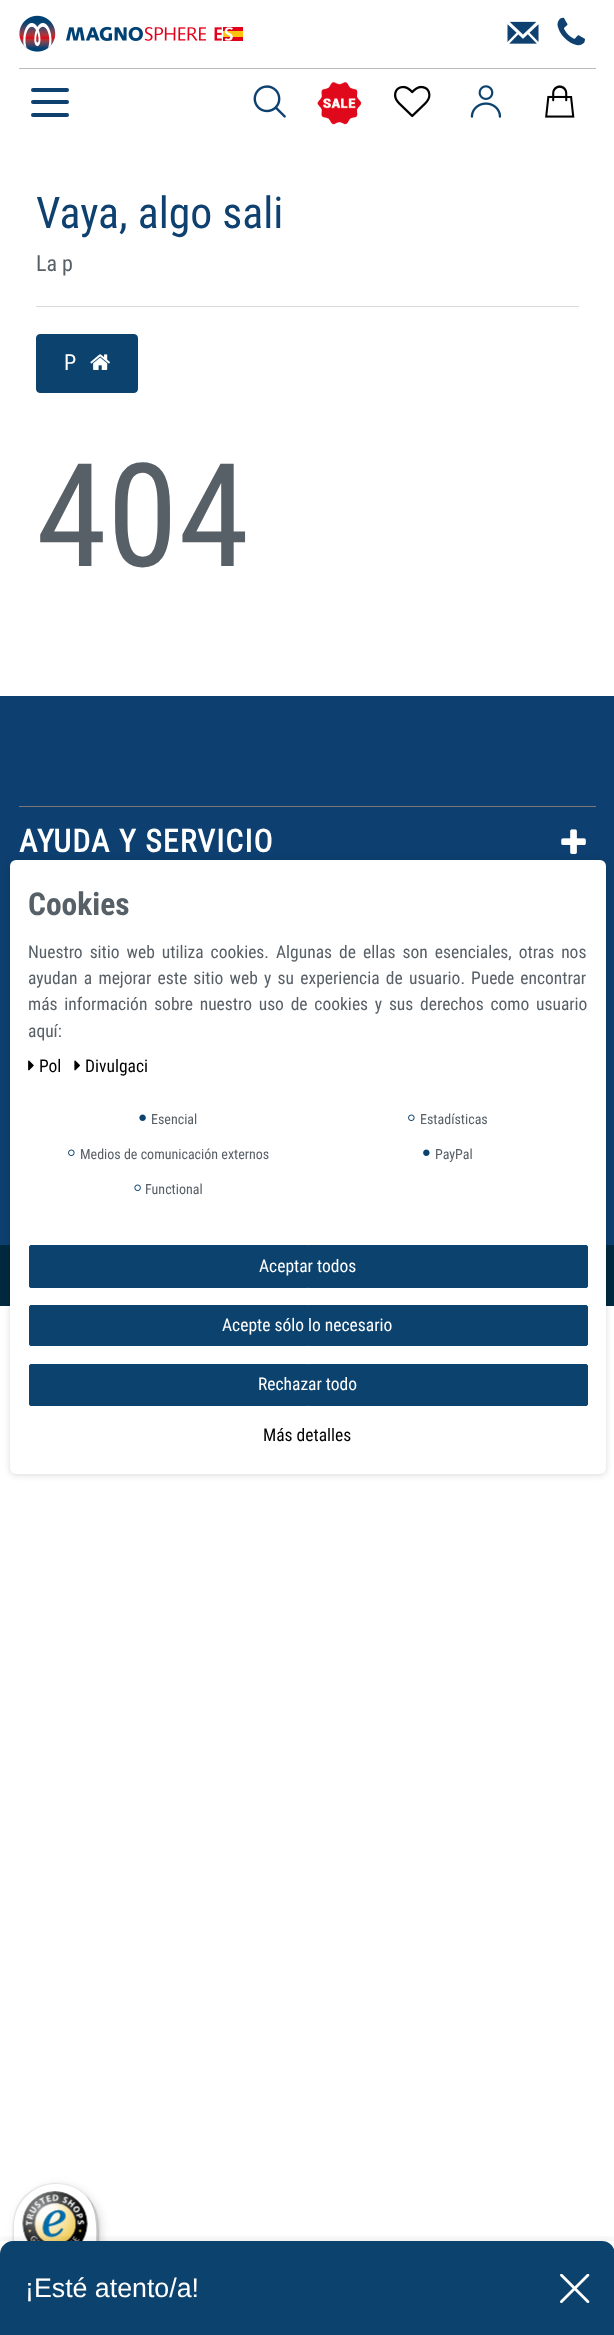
<!DOCTYPE html>
<meta charset="utf-8">
<style>body { margin: 0 } canvas { display: block }</style>
<canvas id="canvas" width="614" height="2335"></canvas>
<script type="module">
  const canvas = document.getElementById("canvas");
  const g = canvas.getContext("2d");
  g.miterLimit = 4;
  g.fontKerning = "normal";
  function drawText(s, x, y, [font, color]) {
    g.font = font;
    g.fillStyle = color;
    g.fillText(s, x, y);
  }
  function fillBox(x, y, w, h, color) {
    g.fillStyle = color;
    g.fillRect(x, y, w, h);
  }
  function fillRounded(x, y, w, h, r, color) {
    g.fillStyle = color;
    g.beginPath();
    g.roundRect(x, y, w, h, r);
    g.fill();
  }
  async function drawPicture(src, x, y, w, h) {
    const img = new Image();
    img.src = src;
    await img.decode();
    g.drawImage(img, x, y, w, h);
  }

  const s1 = ["43.75px Roboto Condensed", "#0F4170"];
  const s2 = ["22px Roboto Condensed", "#586067"];
  const s3 = ["22px Roboto Condensed", "#FFFFFF"];
  const s4 = ["144px Roboto Condensed", "#586067"];
  const s5 = ["bold 31.5px Roboto Condensed", "#FFFFFF"];
  const s6 = ["bold 31.5px 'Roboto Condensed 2'", "#586067"];
  const s7 = ["17.5px Roboto Condensed", "#586067"];
  const s8 = ["17.5px Roboto Condensed", "#000000"];
  const s9 = ["14px Roboto Condensed", "#586067"];
  const s10 = ["17.5px Roboto Condensed", "#FFFFFF"];
  const s11 = ["26.75px Liberation Sans", "#FFFFFF"];

  fillBox(0, 0, 614, 2335, "#FFFFFF");
  await drawPicture("pic1.png", 19, 15, 225, 37);
  await drawPicture("pic2.png", 507, 21, 32, 23);
  await drawPicture("pic3.png", 557, 17, 28, 29);
  fillBox(19, 68, 577, 1, "#BCBCBC");
  fillRounded(31, 88, 38, 4, 2, "#0F4170");
  fillRounded(31, 100, 38, 4, 2, "#0F4170");
  fillRounded(31, 113, 38, 4, 2, "#0F4170");
  await drawPicture("pic4.png", 253, 85, 33, 33);
  await drawPicture("pic5.png", 317, 82, 45, 43);
  await drawPicture("pic6.png", 394, 85, 37, 33);
  await drawPicture("pic7.png", 470, 85, 32, 33);
  await drawPicture("pic8.png", 545, 85, 30, 33);
  drawText("Vaya, algo sali", 36, 228, s1);
  drawText("La p", 36, 271, s2);
  fillBox(36, 306, 543, 1, "#DCDBD8");
  g.fillStyle = "#0C426E";
  g.beginPath();
  g.roundRect(36.5, 334.5, 101, 58, 3.5);
  g.fill();
  g.strokeStyle = "#0C426E";
  g.stroke();
  drawText("P", 64, 370, s3);
  await drawPicture("pic9.png", 90, 354, 20, 16);
  drawText("404", 36, 566, s4);
  fillBox(0, 696, 614, 549, "#0D4070");
  fillBox(19, 806, 577, 1, "#7D7777");
  g.letterSpacing = "1.25px";
  drawText("AYUDA Y SERVICIO", 19, 852, s5);
  await drawPicture("pic10.png", 561, 829, 25, 25);
  fillBox(0, 1245, 614, 61, "#00293F");
  g.fillStyle = "rgba(0, 0, 0, 0.15)";
  g.filter = "blur(3px)";
  g.beginPath();
  g.roundRect(10, 861, 596, 614, 6);
  g.fill();
  g.filter = "none";
  fillRounded(10, 860, 596, 614, 6, "#FFFFFF");
  g.letterSpacing = "0px";
  drawText("Cookies", 28, 915, s6);
  g.wordSpacing = "3px";
  drawText("Nuestro sitio web utiliza cookies. Algunas de ellas son esenciales, otras nos", 28, 958, s7);
  g.wordSpacing = "2.25px";
  drawText("ayudan a mejorar este sitio web y su experiencia de usuario.", 28, 984, s7);
  g.wordSpacing = "2px";
  drawText("Puede encontrar", 471, 984, s7);
  g.wordSpacing = "2.75px";
  drawText("más información sobre nuestro uso de cookies y sus derechos como usuario", 28, 1010, s7);
  g.wordSpacing = "0px";
  drawText("aquí:", 28, 1037, s7);
  await drawPicture("pic11.png", 28, 1060, 6, 11);
  drawText("Pol", 39, 1072, s8);
  await drawPicture("pic12.png", 74, 1060, 6, 11);
  drawText("Divulgaci", 85, 1072, s8);
  await drawPicture("pic13.png", 139, 1114, 7, 7);
  drawText("Esencial", 151, 1124, s9);
  await drawPicture("pic14.png", 408, 1114, 7, 7);
  drawText("Estadísticas", 420, 1124, s9);
  await drawPicture("pic14.png", 68, 1149, 7, 7);
  drawText("Medios de comunicación externos", 80, 1159, s9);
  await drawPicture("pic15.png", 423, 1149, 7, 7);
  drawText("PayPal", 435, 1159, s9);
  await drawPicture("pic16.png", 134, 1184, 7, 7);
  drawText("Functional", 145, 1194, s9);
  g.fillStyle = "#0C426E";
  g.beginPath();
  g.roundRect(29.5, 1245.5, 558, 42, 1.5);
  g.fill();
  g.stroke();
  drawText("Aceptar todos", 259, 1272, s10);
  g.fillStyle = "#0C426E";
  g.beginPath();
  g.roundRect(29.5, 1305.5, 558, 40, 1.5);
  g.fill();
  g.stroke();
  drawText("Acepte sólo lo necesario", 222, 1331, s10);
  g.fillStyle = "#0C426E";
  g.beginPath();
  g.roundRect(29.5, 1364.5, 558, 41, 1.5);
  g.fill();
  g.stroke();
  drawText("Rechazar todo", 258, 1390, s10);
  drawText("Más detalles", 263, 1441, s8);
  g.fillStyle = "rgba(0, 0, 0, 0.15)";
  g.filter = "blur(5px)";
  g.beginPath();
  g.roundRect(16, 2186, 85, 140, 42.5);
  g.fill();
  g.filter = "none";
  g.filter = "blur(1px)";
  g.beginPath();
  g.roundRect(14, 2184, 85, 140, 42.5);
  g.fill();
  g.filter = "none";
  fillRounded(13, 2183, 85, 140, 42.5, "#FFFFFF");
  g.fillStyle = "#E5E5E5";
  g.beginPath();
  g.moveTo(56, 2184);
  g.bezierCurveTo(68, 2184, 78, 2188, 86, 2196);
  g.bezierCurveTo(65, 2174, 28, 2181, 16, 2209);
  g.bezierCurveTo(11, 2221, 13, 2239, 13, 2253);
  g.bezierCurveTo(13, 2274, 10, 2295, 26, 2311);
  g.bezierCurveTo(18, 2303, 14, 2293, 14, 2281);
  g.lineTo(14, 2226);
  g.bezierCurveTo(14, 2203, 33, 2184, 56, 2184);
  g.closePath();
  g.fill();
  g.fillStyle = "rgba(0, 0, 0, 0.2)";
  g.beginPath();
  g.moveTo(25, 2310);
  g.bezierCurveTo(45, 2332, 83, 2325, 95, 2297);
  g.bezierCurveTo(100, 2285, 98, 2267, 98, 2253);
  g.bezierCurveTo(98, 2232, 102, 2210, 85, 2195);
  g.bezierCurveTo(99, 2210, 96, 2232, 96, 2252);
  g.bezierCurveTo(96, 2265, 98, 2283, 93, 2295);
  g.bezierCurveTo(81, 2323, 46, 2329, 25, 2310);
  g.closePath();
  g.fill();
  g.fillStyle = "rgba(50, 50, 50, 0.2)";
  g.beginPath();
  g.moveTo(25, 2311);
  g.bezierCurveTo(46, 2331, 83, 2325, 95, 2297);
  g.bezierCurveTo(100, 2285, 98, 2267, 98, 2253);
  g.bezierCurveTo(98, 2232, 101, 2211, 86, 2195);
  g.bezierCurveTo(93, 2203, 97, 2213, 97, 2224);
  g.lineTo(97, 2279);
  g.bezierCurveTo(97, 2303, 78, 2322, 54, 2322);
  g.bezierCurveTo(43, 2322, 33, 2318, 25, 2311);
  g.closePath();
  g.fill();
  g.fillStyle = "rgba(255, 255, 255, 0.3)";
  g.beginPath();
  g.moveTo(25, 2311);
  g.bezierCurveTo(46, 2331, 83, 2325, 95, 2297);
  g.bezierCurveTo(100, 2285, 98, 2267, 98, 2253);
  g.bezierCurveTo(98, 2232, 101, 2211, 86, 2195);
  g.bezierCurveTo(93, 2203, 97, 2213, 97, 2224);
  g.lineTo(97, 2279);
  g.bezierCurveTo(97, 2303, 78, 2322, 54, 2322);
  g.bezierCurveTo(43, 2322, 33, 2318, 25, 2311);
  g.closePath();
  g.fill();
  await drawPicture("pic17.png", 22, 2191, 66, 50);
  g.save();
  g.beginPath();
  g.rect(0, 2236, 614, 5);
  g.clip();
  g.fillStyle = "rgba(0, 0, 0, 0.1)";
  g.filter = "blur(6px)";
  g.beginPath();
  g.rect(0, 2241, 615, 94);
  g.fill();
  g.filter = "none";
  g.restore();
  g.fillStyle = "#0C426E";
  g.beginPath();
  g.moveTo(13, 2241);
  g.lineTo(602, 2241);
  g.bezierCurveTo(609, 2241, 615, 2247, 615, 2254);
  g.lineTo(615, 2335);
  g.lineTo(0, 2335);
  g.lineTo(0, 2254);
  g.bezierCurveTo(0, 2247, 6, 2241, 13, 2241);
  g.closePath();
  g.fill();
  drawText("¡Esté atento/a!", 25, 2297, s11);
  await drawPicture("pic18.png", 560, 2274, 30, 29);
</script>
